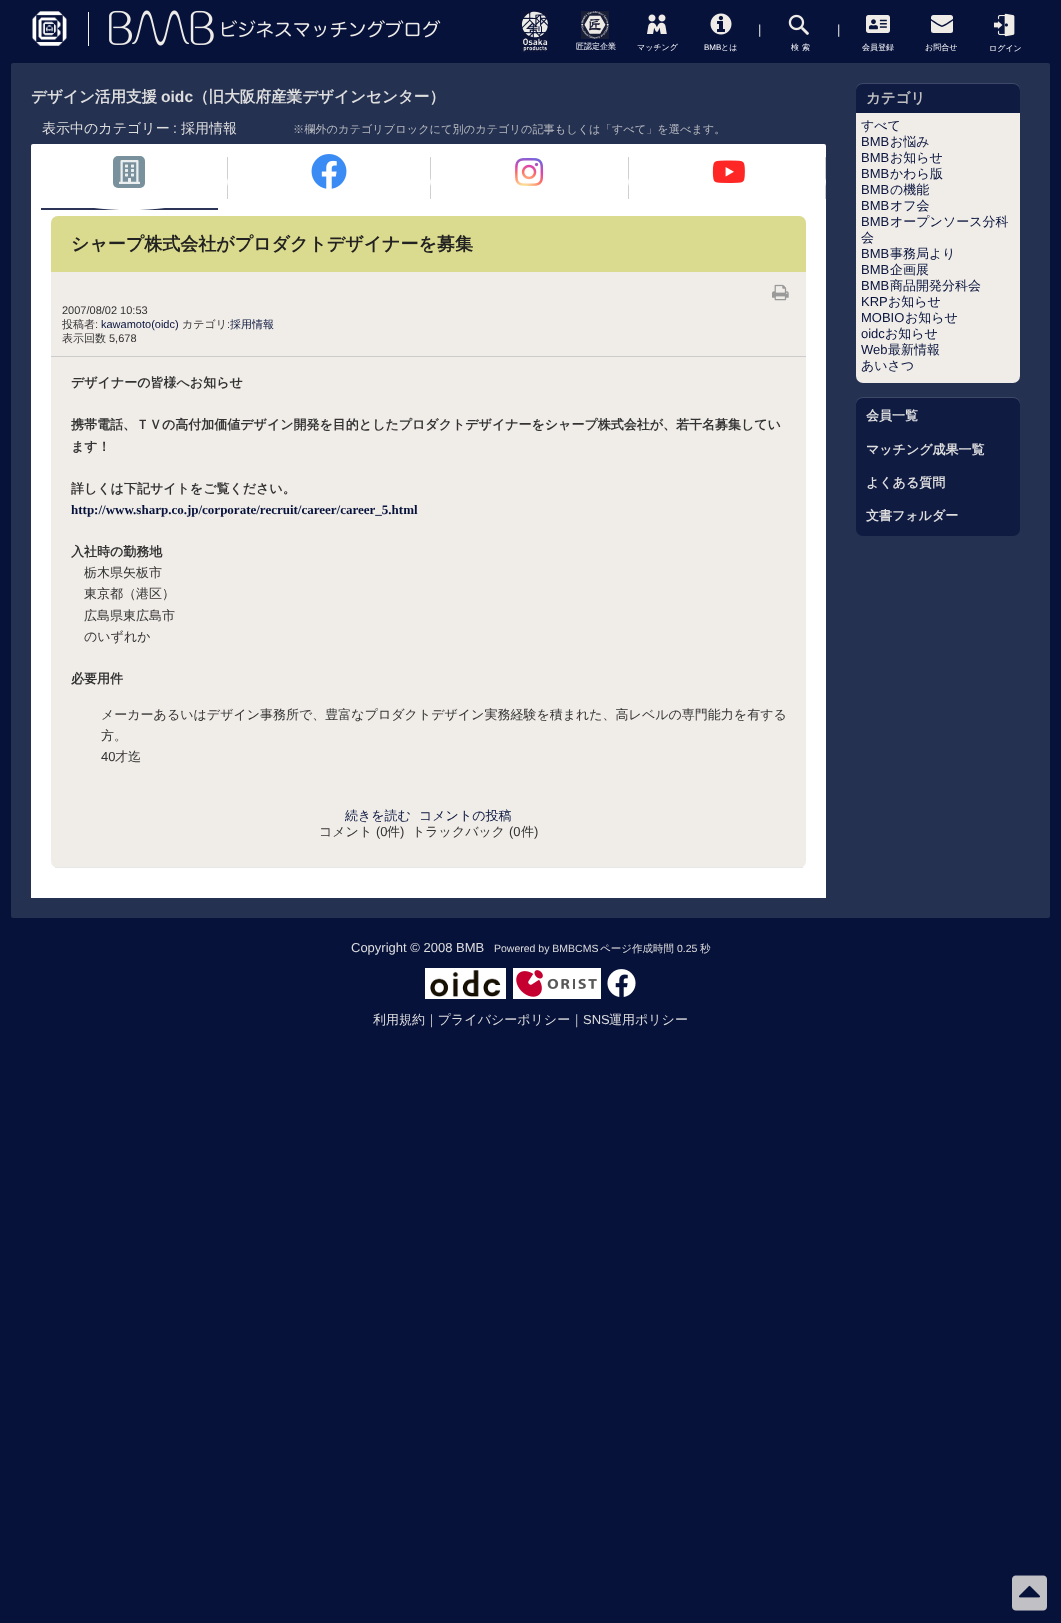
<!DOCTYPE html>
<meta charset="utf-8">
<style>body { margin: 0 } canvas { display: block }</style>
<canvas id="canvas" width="1061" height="1623"></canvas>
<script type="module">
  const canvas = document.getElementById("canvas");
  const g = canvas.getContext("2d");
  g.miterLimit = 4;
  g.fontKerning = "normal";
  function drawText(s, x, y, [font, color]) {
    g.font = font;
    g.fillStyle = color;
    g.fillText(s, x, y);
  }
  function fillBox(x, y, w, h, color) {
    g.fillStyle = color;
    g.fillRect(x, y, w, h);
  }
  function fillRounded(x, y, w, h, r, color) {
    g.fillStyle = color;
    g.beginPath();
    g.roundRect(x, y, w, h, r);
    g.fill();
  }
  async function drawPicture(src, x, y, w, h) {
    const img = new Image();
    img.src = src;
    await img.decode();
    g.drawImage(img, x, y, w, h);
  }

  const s1 = ["13px Liberation Sans", "#DEDEDE"];
  const s2 = ["500 8px WenQuanYi Zen Hei", "#FFFFFF"];
  const s3 = ["8px Liberation Sans", "#FFFFFF"];
  const s4 = ["bold 15.6px WenQuanYi Zen Hei", "#DEDEDE"];
  const s5 = ["bold 15.6px Liberation Sans", "#DEDEDE"];
  const s6 = ["500 14px WenQuanYi Zen Hei", "#DEDEDE"];
  const s7 = ["14px Liberation Sans", "#DEDEDE"];
  const s8 = ["500 11.2px WenQuanYi Zen Hei", "#B7BAC0"];
  const s9 = ["bold 18px WenQuanYi Zen Hei", "#222222"];
  const s10 = ["11px Liberation Sans", "#333333"];
  const s11 = ["500 11px WenQuanYi Zen Hei", "#333333"];
  const s12 = ["11px Liberation Sans", "#07123B"];
  const s13 = ["500 11px WenQuanYi Zen Hei", "#07123B"];
  const s14 = ["bold 13px WenQuanYi Zen Hei", "#333333"];
  const s15 = ["bold 13px Liberation Serif", "#07123B"];
  const s16 = ["500 13px WenQuanYi Zen Hei", "#333333"];
  const s17 = ["13px Liberation Sans", "#333333"];
  const s18 = ["500 13px WenQuanYi Zen Hei", "#07123B"];
  const s19 = ["bold 14.5px WenQuanYi Zen Hei", "#C0C0C0"];
  const s20 = ["13px Liberation Sans", "#07123B"];
  const s21 = ["bold 13px WenQuanYi Zen Hei", "#DEDEDE"];
  const s22 = ["10.5px Liberation Sans", "#DEDEDE"];
  const s23 = ["500 10.5px WenQuanYi Zen Hei", "#DEDEDE"];
  const s24 = ["500 13px WenQuanYi Zen Hei", "#DEDEDE"];

  fillBox(0, 0, 1061, 1623, "#07123B");
  await drawPicture("pic1.png", 32, 11, 35, 35);
  fillBox(88, 12, 1, 34, "#F2F2F2");
  await drawPicture("pic2.png", 109, 10, 332, 36);
  await drawPicture("pic3.png", 521, 11, 27, 41);
  drawText("|", 758, 34, s1);
  drawText("|", 837, 34, s1);
  await drawPicture("pic4.png", 581, 11, 28, 28);
  drawText("匠認定企業", 576, 49, s2);
  await drawPicture("pic5.png", 647, 14, 20, 20);
  drawText("マッチング", 637, 50, s2);
  await drawPicture("pic6.png", 710, 13, 22, 22);
  drawText("BMB", 704, 50, s3);
  drawText("とは", 721, 50, s2);
  await drawPicture("pic7.png", 788, 14, 21, 21);
  g.letterSpacing = "3px";
  drawText("検索", 791, 50, s2);
  await drawPicture("pic8.png", 866, 15, 24, 18);
  g.letterSpacing = "0px";
  drawText("会員登録", 862, 50, s2);
  fillRounded(931, 15, 22, 18, 2.5, "#EFECE8");
  g.beginPath();
  g.moveTo(954, 19);
  g.bezierCurveTo(940, 28.5, 944, 28.5, 930, 19);
  g.strokeStyle = "#07133B";
  g.lineWidth = 1.5;
  g.stroke();
  drawText("お問合せ", 925, 50, s2);
  await drawPicture("pic9.png", 993, 13, 22, 24);
  drawText("ログイン", 989, 51, s2);
  fillRounded(11, 63, 1039, 855, 2, "#253151");
  drawText("デザイン活用支援", 31, 102, s4);
  drawText("oidc", 161, 102, s5);
  drawText("（旧大阪府産業デザインセンター）", 193, 102, s4);
  drawText("表示中のカテゴリー", 42, 133, s6);
  drawText(":", 173, 133, s7);
  drawText("採用情報", 181, 133, s6);
  drawText("※欄外のカテゴリブロックにて別のカテゴリの記事もしくは「すべて」を選べます。", 293, 133, s8);
  g.fillStyle = "#FFFFFF";
  g.beginPath();
  g.roundRect(31, 144, 795, 68, [2, 2, 0, 0]);
  g.fill();
  fillBox(227, 157, 1, 42, "#D0D0D0");
  fillBox(41, 208, 177, 2, "#2C3558");
  g.fillStyle = "#FFFFFF";
  g.beginPath();
  g.ellipse(129.5, 182, 98.5, 28, 0, 0, Math.PI * 2);
  g.fill();
  fillRounded(113, 156, 32, 32, 5, "#78919C");
  await drawPicture("pic10.png", 119, 160, 21, 24);
  fillBox(430, 157, 1, 42, "#D0D0D0");
  g.fillStyle = "#FFFFFF";
  g.beginPath();
  g.ellipse(329.5, 182, 101.5, 28, 0, 0, Math.PI * 2);
  g.fill();
  await drawPicture("pic11.png", 311, 154, 36, 35);
  fillBox(628, 157, 1, 42, "#D0D0D0");
  g.fillStyle = "#FFFFFF";
  g.beginPath();
  g.ellipse(530, 182, 99, 28, 0, 0, Math.PI * 2);
  g.fill();
  await drawPicture("pic12.png", 515, 158, 29, 28);
  fillBox(825, 157, 1, 42, "#D0D0D0");
  g.fillStyle = "#FFFFFF";
  g.beginPath();
  g.ellipse(727.5, 182, 98.5, 28, 0, 0, Math.PI * 2);
  g.fill();
  await drawPicture("pic13.png", 712, 160, 33, 23);
  fillBox(31, 212, 795, 686, "#FFFFFF");
  fillRounded(51, 216, 755, 652, 7, "#F0EDE9");
  fillBox(55, 867, 748, 1, "#E7E7E7");
  fillBox(51, 356, 755, 1, "#CCCCCC");
  g.fillStyle = "#DBDB8F";
  g.beginPath();
  g.roundRect(51, 216, 755, 56, [7, 7, 0, 0]);
  g.fill();
  drawText("シャープ株式会社がプロダクトデザイナーを募集", 71, 250, s9);
  await drawPicture("pic14.png", 772, 284, 17, 17);
  drawText("2007/08/02 10:53", 62, 314, s10);
  drawText("投稿者", 62, 328, s11);
  drawText(":", 95, 328, s10);
  drawText("kawamoto(oidc)", 101, 328, s12);
  drawText("カテゴリ", 182, 328, s11);
  drawText(":", 227, 328, s10);
  drawText("採用情報", 230, 328, s13);
  drawText("表示回数", 62, 342, s11);
  drawText("5,678", 109, 342, s10);
  drawText("デザイナーの皆様へお知らせ", 71, 387, s14);
  drawText("携帯電話、ＴＶの高付加価値デザイン開発を目的としたプロダクトデザイナーをシャープ株式会社が、若干名募集してい", 71, 429, s14);
  drawText("ます！", 71, 451, s14);
  drawText("詳しくは下記サイトをご覧ください。", 71, 493, s14);
  drawText("http://www.sharp.co.jp/corporate/recruit/career/career_5.html", 71, 514, s15);
  drawText("入社時の勤務地", 71, 556, s14);
  drawText("栃木県矢板市", 84, 577, s16);
  drawText("東京都（港区）", 84, 598, s16);
  drawText("広島県東広島市", 84, 620, s16);
  drawText("のいずれか", 84, 641, s16);
  drawText("必要用件", 71, 683, s14);
  drawText("メーカーあるいはデザイン事務所で、豊富なプロダクトデザイン実務経験を積まれた、高レベルの専門能力を有する", 101, 719, s16);
  drawText("方。", 101, 740, s16);
  drawText("40", 101, 761, s17);
  drawText("才迄", 115, 761, s16);
  drawText("続きを読む", 345, 820, s18);
  drawText("コメントの投稿", 419, 820, s18);
  drawText("コメント", 319, 836, s16);
  drawText("(0", 376, 836, s17);
  drawText("件", 387, 836, s16);
  drawText(")", 400, 836, s17);
  drawText("トラックバック", 412, 836, s16);
  drawText("(0", 509, 836, s17);
  drawText("件", 521, 836, s16);
  drawText(")", 534, 836, s17);
  fillRounded(856, 83, 164, 300, 7, "#101B42");
  g.fillStyle = "rgba(255, 255, 255, 0.2)";
  g.beginPath();
  g.moveTo(863, 84);
  g.lineTo(1013, 84);
  g.bezierCurveTo(1017, 84, 1020, 87, 1020, 91);
  g.lineTo(1020, 90);
  g.bezierCurveTo(1020, 86, 1017, 83, 1013, 83);
  g.lineTo(863, 83);
  g.bezierCurveTo(859, 83, 856, 86, 856, 90);
  g.lineTo(856, 91);
  g.bezierCurveTo(856, 87, 859, 84, 863, 84);
  g.closePath();
  g.fill();
  drawText("カテゴリ", 866, 103, s19);
  g.fillStyle = "#F0EDE9";
  g.beginPath();
  g.roundRect(856, 113, 164, 270, [0, 0, 7, 7]);
  g.fill();
  drawText("すべて", 861, 130, s18);
  drawText("BMB", 861, 146, s20);
  drawText("お悩み", 890, 146, s18);
  drawText("BMB", 861, 162, s20);
  drawText("お知らせ", 890, 162, s18);
  drawText("BMB", 861, 178, s20);
  drawText("かわら版", 890, 178, s18);
  drawText("BMB", 861, 194, s20);
  drawText("の機能", 890, 194, s18);
  drawText("BMB", 861, 210, s20);
  drawText("オフ会", 890, 210, s18);
  drawText("BMB", 861, 226, s20);
  drawText("オープンソース分科", 890, 226, s18);
  drawText("会", 861, 242, s18);
  drawText("BMB", 861, 258, s20);
  drawText("事務局より", 890, 258, s18);
  drawText("BMB", 861, 274, s20);
  drawText("企画展", 890, 274, s18);
  drawText("BMB", 861, 290, s20);
  drawText("商品開発分科会", 890, 290, s18);
  drawText("KRP", 861, 306, s20);
  drawText("お知らせ", 888, 306, s18);
  drawText("MOBIO", 861, 322, s20);
  drawText("お知らせ", 905, 322, s18);
  drawText("oidc", 861, 338, s20);
  drawText("お知らせ", 885, 338, s18);
  drawText("Web", 861, 354, s20);
  drawText("最新情報", 888, 354, s18);
  drawText("あいさつ", 861, 370, s18);
  fillRounded(856, 397, 164, 139, 7, "#101B42");
  g.fillStyle = "rgba(255, 255, 255, 0.2)";
  g.beginPath();
  g.moveTo(863, 398);
  g.lineTo(1013, 398);
  g.bezierCurveTo(1017, 398, 1020, 401, 1020, 405);
  g.lineTo(1020, 404);
  g.bezierCurveTo(1020, 400, 1017, 397, 1013, 397);
  g.lineTo(863, 397);
  g.bezierCurveTo(859, 397, 856, 400, 856, 404);
  g.lineTo(856, 405);
  g.bezierCurveTo(856, 401, 859, 398, 863, 398);
  g.closePath();
  g.fill();
  drawText("会員一覧", 866, 420, s21);
  drawText("マッチング成果一覧", 866, 454, s21);
  drawText("よくある質問", 866, 487, s21);
  drawText("文書フォルダー", 866, 520, s21);
  drawText("Copyright © 2008 BMB", 351, 952, s1);
  drawText("Powered by BMBCMS", 494, 952, s22);
  drawText("ページ作成時間", 600, 952, s23);
  drawText("0.25", 677, 952, s22);
  drawText("秒", 700, 952, s23);
  fillBox(425, 968, 81, 31, "#FFFFFF");
  await drawPicture("pic15.png", 430, 970, 71, 27);
  await drawPicture("pic16.png", 513, 968, 88, 31);
  await drawPicture("pic17.png", 607, 969, 29, 28);
  drawText("利用規約｜プライバシーポリシー｜", 373, 1024, s24);
  drawText("SNS", 583, 1024, s1);
  drawText("運用ポリシー", 609, 1024, s24);
  await drawPicture("pic18.png", 1012, 1575, 35, 36);
</script>
